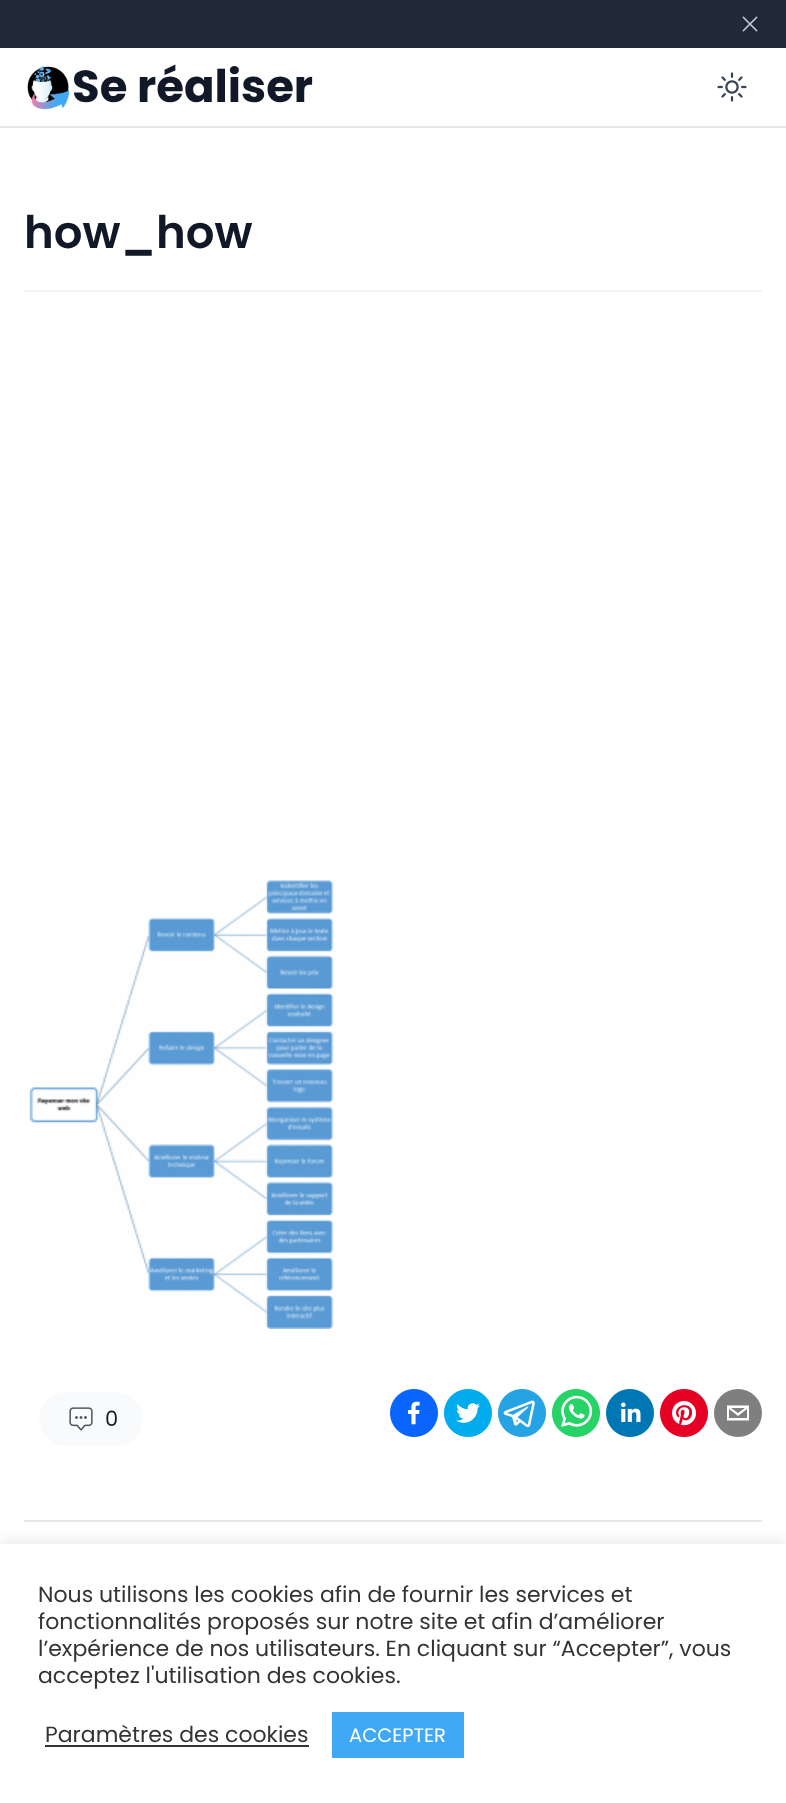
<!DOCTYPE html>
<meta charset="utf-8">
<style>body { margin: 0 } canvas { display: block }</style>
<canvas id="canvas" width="786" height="1803"></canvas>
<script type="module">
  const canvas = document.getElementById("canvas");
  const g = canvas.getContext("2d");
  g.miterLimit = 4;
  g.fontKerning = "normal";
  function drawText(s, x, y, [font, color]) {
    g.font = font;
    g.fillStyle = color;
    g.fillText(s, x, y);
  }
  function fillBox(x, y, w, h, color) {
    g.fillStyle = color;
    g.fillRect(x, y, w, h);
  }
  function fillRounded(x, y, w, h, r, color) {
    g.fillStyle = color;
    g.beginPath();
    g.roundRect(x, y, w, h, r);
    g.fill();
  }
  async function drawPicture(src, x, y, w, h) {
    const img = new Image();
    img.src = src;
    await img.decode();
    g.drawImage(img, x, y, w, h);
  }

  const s1 = ["bold 45px Poppins", "#111827"];
  const s2 = ["600 45px Poppins", "#111827"];
  const s3 = ["21px Poppins", "#111827"];
  const s4 = ["22px Poppins", "#333333"];
  const s5 = ["19.5px Poppins", "#FFFFFF"];

  fillBox(0, 0, 786, 1803, "#FFFFFF");
  fillBox(0, 0, 786, 48, "#1F2937");
  await drawPicture("pic1.png", 742, 16, 16, 16);
  fillBox(0, 126, 786, 2, "#E5E7EB");
  await drawPicture("pic2.png", 27, 65, 43, 45);
  drawText("Se réaliser", 72, 102, s1);
  await drawPicture("pic3.png", 717, 72, 30, 30);
  drawText("how_how", 24, 248, s2);
  fillBox(24, 290, 738, 2, "#F3F4F6");
  await drawPicture("pic4.png", 29, 880, 305, 449);
  fillBox(24, 1520, 738, 2, "#E5E7EB");
  fillRounded(39, 1392, 104, 54, 27, "#F9FAFB");
  await drawPicture("pic5.png", 69, 1407, 24, 24);
  drawText("0", 105, 1426, s3);
  await drawPicture("pic6.png", 390, 1389, 48, 48);
  await drawPicture("pic7.png", 444, 1389, 48, 48);
  await drawPicture("pic8.png", 498, 1389, 48, 48);
  await drawPicture("pic9.png", 552, 1389, 48, 48);
  await drawPicture("pic10.png", 606, 1389, 48, 48);
  await drawPicture("pic11.png", 660, 1389, 48, 48);
  g.fillStyle = "#7F7F7F";
  g.beginPath();
  g.arc(738, 1413, 24, 0, Math.PI * 2);
  g.fill();
  g.fillStyle = "#FFFFFF";
  g.beginPath();
  g.moveTo(727, 1405.5);
  g.lineTo(727, 1420.5);
  g.lineTo(749, 1420.5);
  g.lineTo(749, 1405.5);
  g.closePath();
  g.moveTo(745, 1408);
  g.lineTo(738, 1413);
  g.lineTo(731, 1408);
  g.closePath();
  g.moveTo(729, 1418);
  g.lineTo(729, 1409);
  g.lineTo(738, 1416);
  g.lineTo(747, 1409);
  g.lineTo(747, 1418);
  g.closePath();
  g.fill();
  g.fillStyle = "rgba(172, 171, 171, 0.3)";
  g.filter = "blur(7.5px)";
  g.beginPath();
  g.rect(0, 1542, 786, 260);
  g.fill();
  g.filter = "none";
  fillBox(0, 1544, 786, 259, "#FFFFFF");
  drawText("Nous utilisons les cookies afin de fournir les services et", 38, 1602, s4);
  drawText("fonctionnalités proposés sur notre site et afin d’améliorer", 38, 1629, s4);
  drawText("l’expérience de nos utilisateurs. En cliquant sur “Accepter”, vous", 38, 1656, s4);
  drawText("acceptez l'utilisation des cookies.", 38, 1683, s4);
  drawText("Paramètres des cookies", 45, 1742, s4);
  fillBox(45, 1745, 264, 2, "#333333");
  fillBox(332, 1712, 132, 46, "#3FA9F5");
  drawText("ACCEPTER", 349, 1742, s5);
</script>
